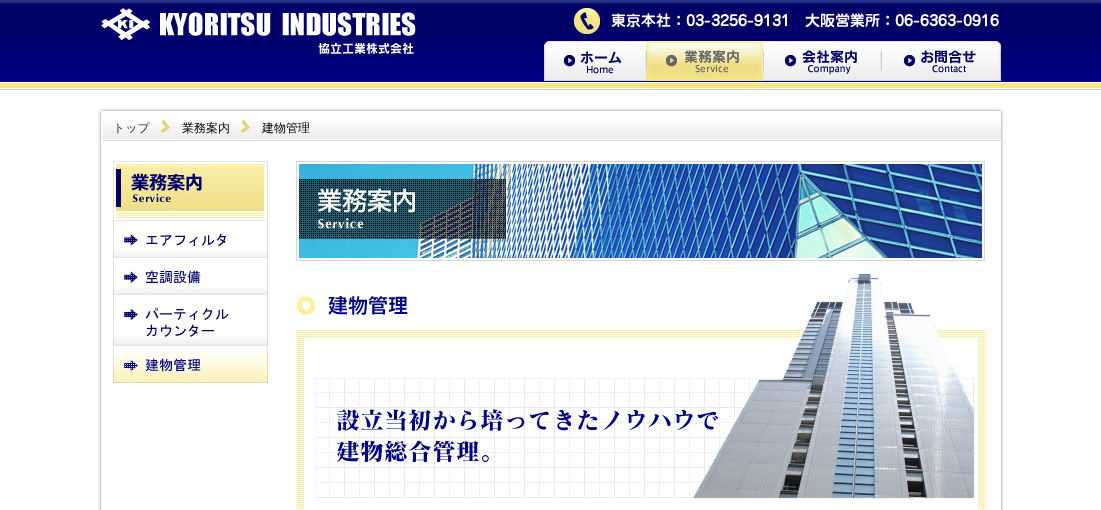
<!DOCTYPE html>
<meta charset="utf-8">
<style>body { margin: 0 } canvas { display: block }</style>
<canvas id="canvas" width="1101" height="510"></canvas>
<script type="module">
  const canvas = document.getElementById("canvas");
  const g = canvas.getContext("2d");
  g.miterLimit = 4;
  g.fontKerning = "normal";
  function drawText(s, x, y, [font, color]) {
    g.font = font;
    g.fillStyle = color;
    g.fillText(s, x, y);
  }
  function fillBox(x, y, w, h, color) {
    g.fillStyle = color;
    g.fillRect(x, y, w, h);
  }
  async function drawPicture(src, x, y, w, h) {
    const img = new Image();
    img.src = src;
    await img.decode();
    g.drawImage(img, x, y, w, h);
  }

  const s1 = ["500 12px WenQuanYi Zen Hei", "#333333"];
  const s2 = ["500 12px WenQuanYi Zen Hei", "#000000"];

  fillBox(0, 0, 1101, 510, "#FFFFFF");
  await drawPicture("pic1.png", 0, 0, 1101, 88);
  fillBox(0, 89, 1101, 1, "#CCCCCC");
  await drawPicture("pic2.png", 101, 8, 315, 46);
  await drawPicture("pic3.png", 574, 8, 425, 26);
  await drawPicture("pic4.png", 544, 41, 102, 40);
  await drawPicture("pic5.png", 646, 41, 117, 40);
  await drawPicture("pic6.png", 763, 41, 118, 40);
  await drawPicture("pic7.png", 881, 41, 120, 40);
  await drawPicture("pic8.png", 98, 113, 906, 397);
  await drawPicture("pic9.png", 98, 108, 906, 5);
  await drawPicture("pic10.png", 103, 122, 898, 19);
  drawText("トップ", 113, 132, s1);
  await drawPicture("pic11.png", 160, 120, 10, 13);
  drawText("業務案内", 182, 132, s2);
  await drawPicture("pic11.png", 240, 120, 10, 13);
  drawText("建物管理", 262, 132, s2);
  await drawPicture("pic12.png", 113, 161, 155, 60);
  await drawPicture("pic13.png", 113, 221, 155, 37);
  await drawPicture("pic14.png", 113, 258, 155, 37);
  await drawPicture("pic15.png", 113, 295, 155, 51);
  await drawPicture("pic16.png", 113, 346, 155, 37);
  await drawPicture("pic17.png", 296, 161, 689, 100);
  await drawPicture("pic18.png", 296, 330, 690, 180);
  fillBox(304, 338, 674, 172, "#FFFFFF");
  await drawPicture("pic19.png", 315, 274, 660, 225);
  await drawPicture("pic20.png", 297, 296, 111, 19);
</script>
